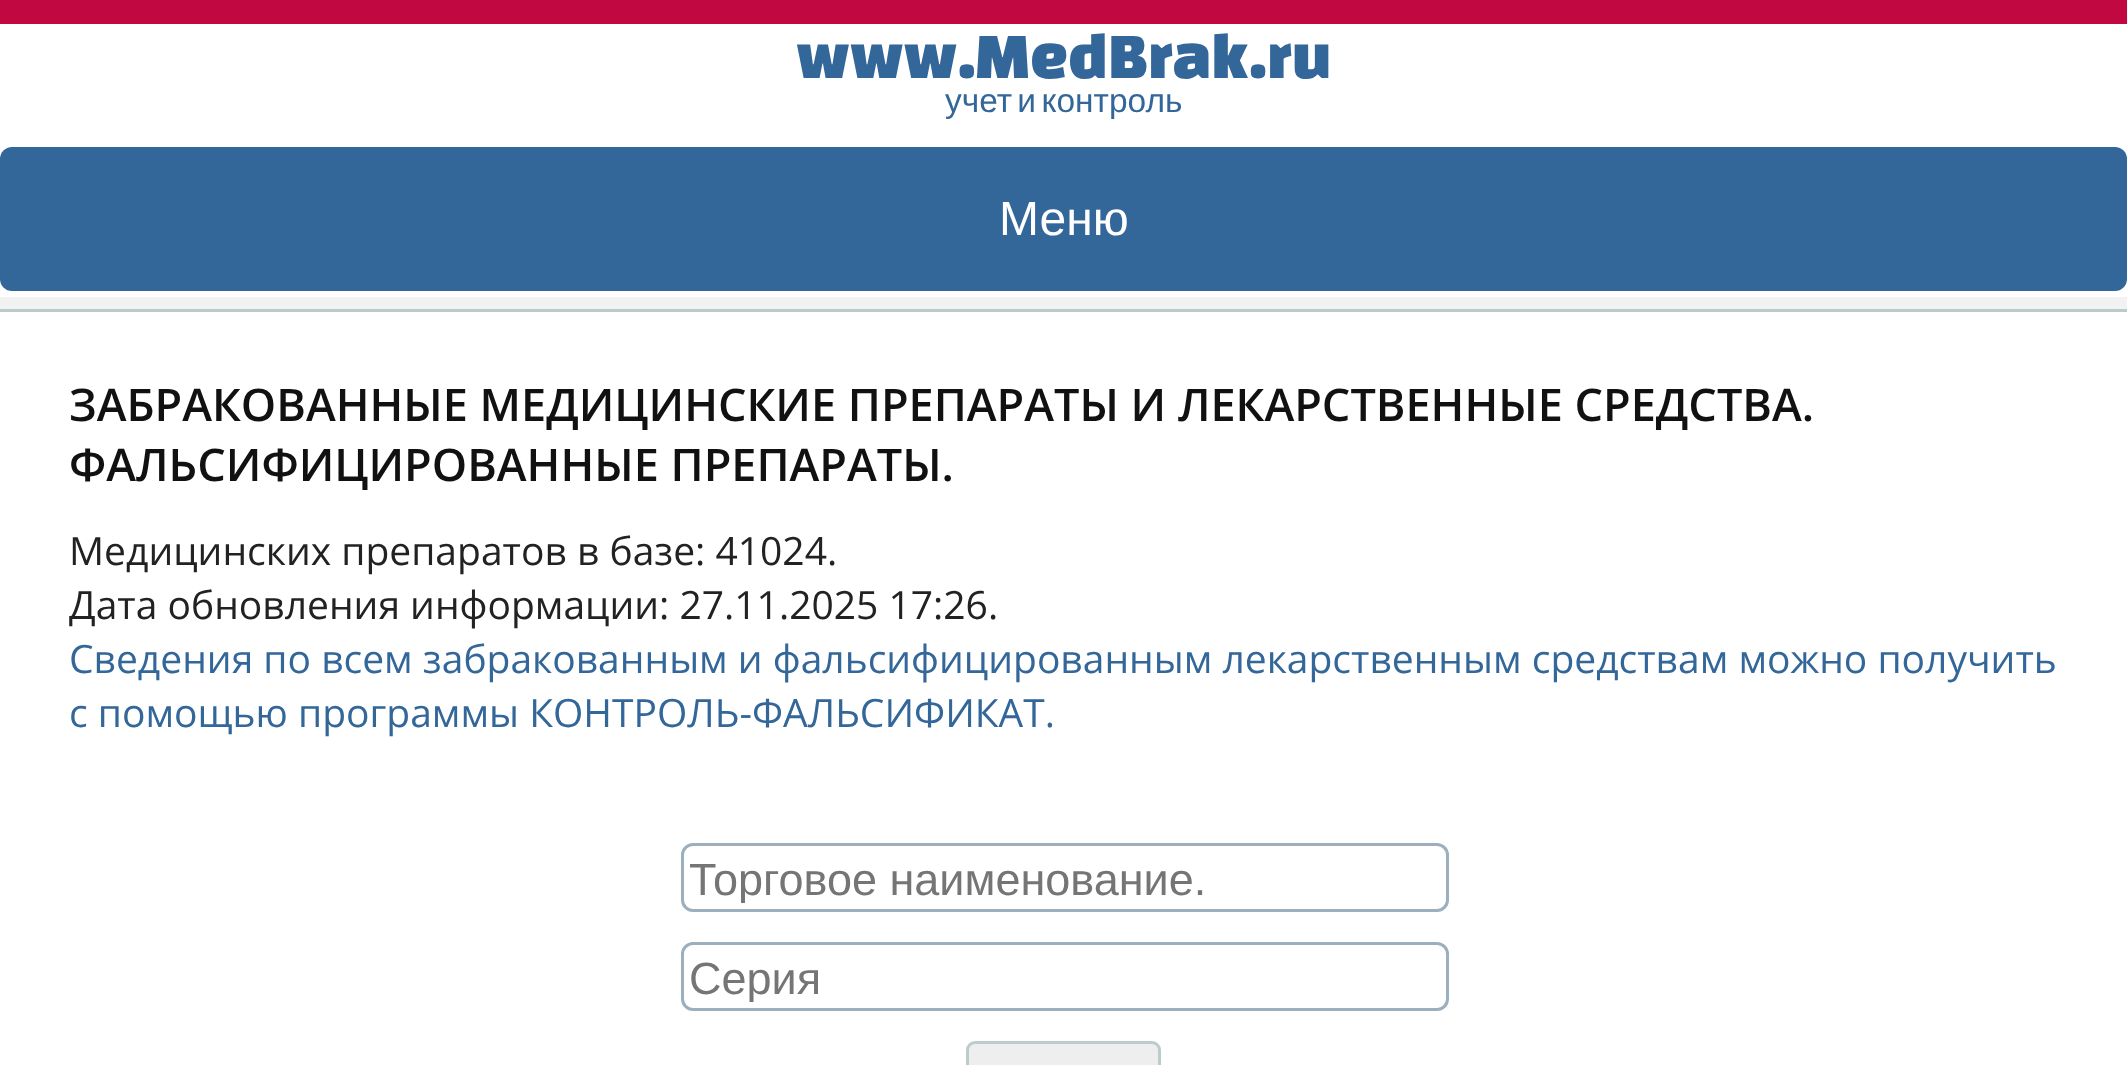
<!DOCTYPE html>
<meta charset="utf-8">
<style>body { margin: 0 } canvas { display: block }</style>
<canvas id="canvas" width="2127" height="1065"></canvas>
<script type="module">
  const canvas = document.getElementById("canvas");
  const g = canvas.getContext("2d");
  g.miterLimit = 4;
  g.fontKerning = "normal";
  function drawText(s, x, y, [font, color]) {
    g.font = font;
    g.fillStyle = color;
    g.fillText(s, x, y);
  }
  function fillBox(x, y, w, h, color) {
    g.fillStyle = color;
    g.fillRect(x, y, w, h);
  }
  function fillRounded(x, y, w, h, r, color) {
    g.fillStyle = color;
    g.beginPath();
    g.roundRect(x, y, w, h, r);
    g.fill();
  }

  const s1 = ["67.25px Changa One", "#336699"];
  const s2 = ["33.5px Liberation Sans", "#336699"];
  const s3 = ["48px Liberation Sans", "#FFFFFF"];
  const s4 = ["600 45px Open Sans", "#111111"];
  const s5 = ["39px Open Sans", "#222222"];
  const s6 = ["39px Open Sans", "#336699"];
  const s7 = ["45px Liberation Sans", "#757575"];

  fillBox(0, 0, 2127, 1065, "#FFFFFF");
  fillBox(0, 0, 2127, 24, "#C10841");
  drawText("www.MedBrak.ru", 796, 78, s1);
  g.wordSpacing = "-4px";
  drawText("учет и контроль", 945, 112, s2);
  fillRounded(0, 147, 2127, 144, 12, "#336699");
  g.wordSpacing = "0px";
  drawText("Меню", 999, 235, s3);
  fillBox(0, 297, 2127, 12, "#F2F2F2");
  fillBox(0, 309, 2127, 3, "#BAC9CA");
  drawText("ЗАБРАКОВАННЫЕ МЕДИЦИНСКИЕ ПРЕПАРАТЫ И ЛЕКАРСТВЕННЫЕ СРЕДСТВА.", 69, 421, s4);
  drawText("ФАЛЬСИФИЦИРОВАННЫЕ ПРЕПАРАТЫ.", 69, 481, s4);
  drawText("Медицинских препаратов в базе: 41024.", 69, 565, s5);
  drawText("Дата обновления информации: 27.11.2025 17:26.", 69, 619, s5);
  drawText("Сведения по всем забракованным и фальсифицированным лекарственным средствам можно получить", 69, 673, s6);
  drawText("с помощью программы КОНТРОЛЬ-ФАЛЬСИФИКАТ.", 69, 727, s6);
  g.beginPath();
  g.roundRect(682.5, 844.5, 765, 66, 10.5);
  g.strokeStyle = "#9CAFBE";
  g.lineWidth = 3;
  g.stroke();
  g.save();
  g.beginPath();
  g.rect(690, 852, 750, 51);
  g.clip();
  drawText("Торговое наименование.", 689, 895, s7);
  g.restore();
  g.beginPath();
  g.roundRect(682.5, 943.5, 765, 66, 10.5);
  g.stroke();
  g.save();
  g.beginPath();
  g.rect(690, 951, 750, 51);
  g.clip();
  drawText("Серия", 689, 994, s7);
  g.restore();
  g.fillStyle = "#EEEEEE";
  g.beginPath();
  g.roundRect(967.5, 1042.5, 192, 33, 7.5);
  g.fill();
  g.strokeStyle = "#BBCCCC";
  g.stroke();
</script>
